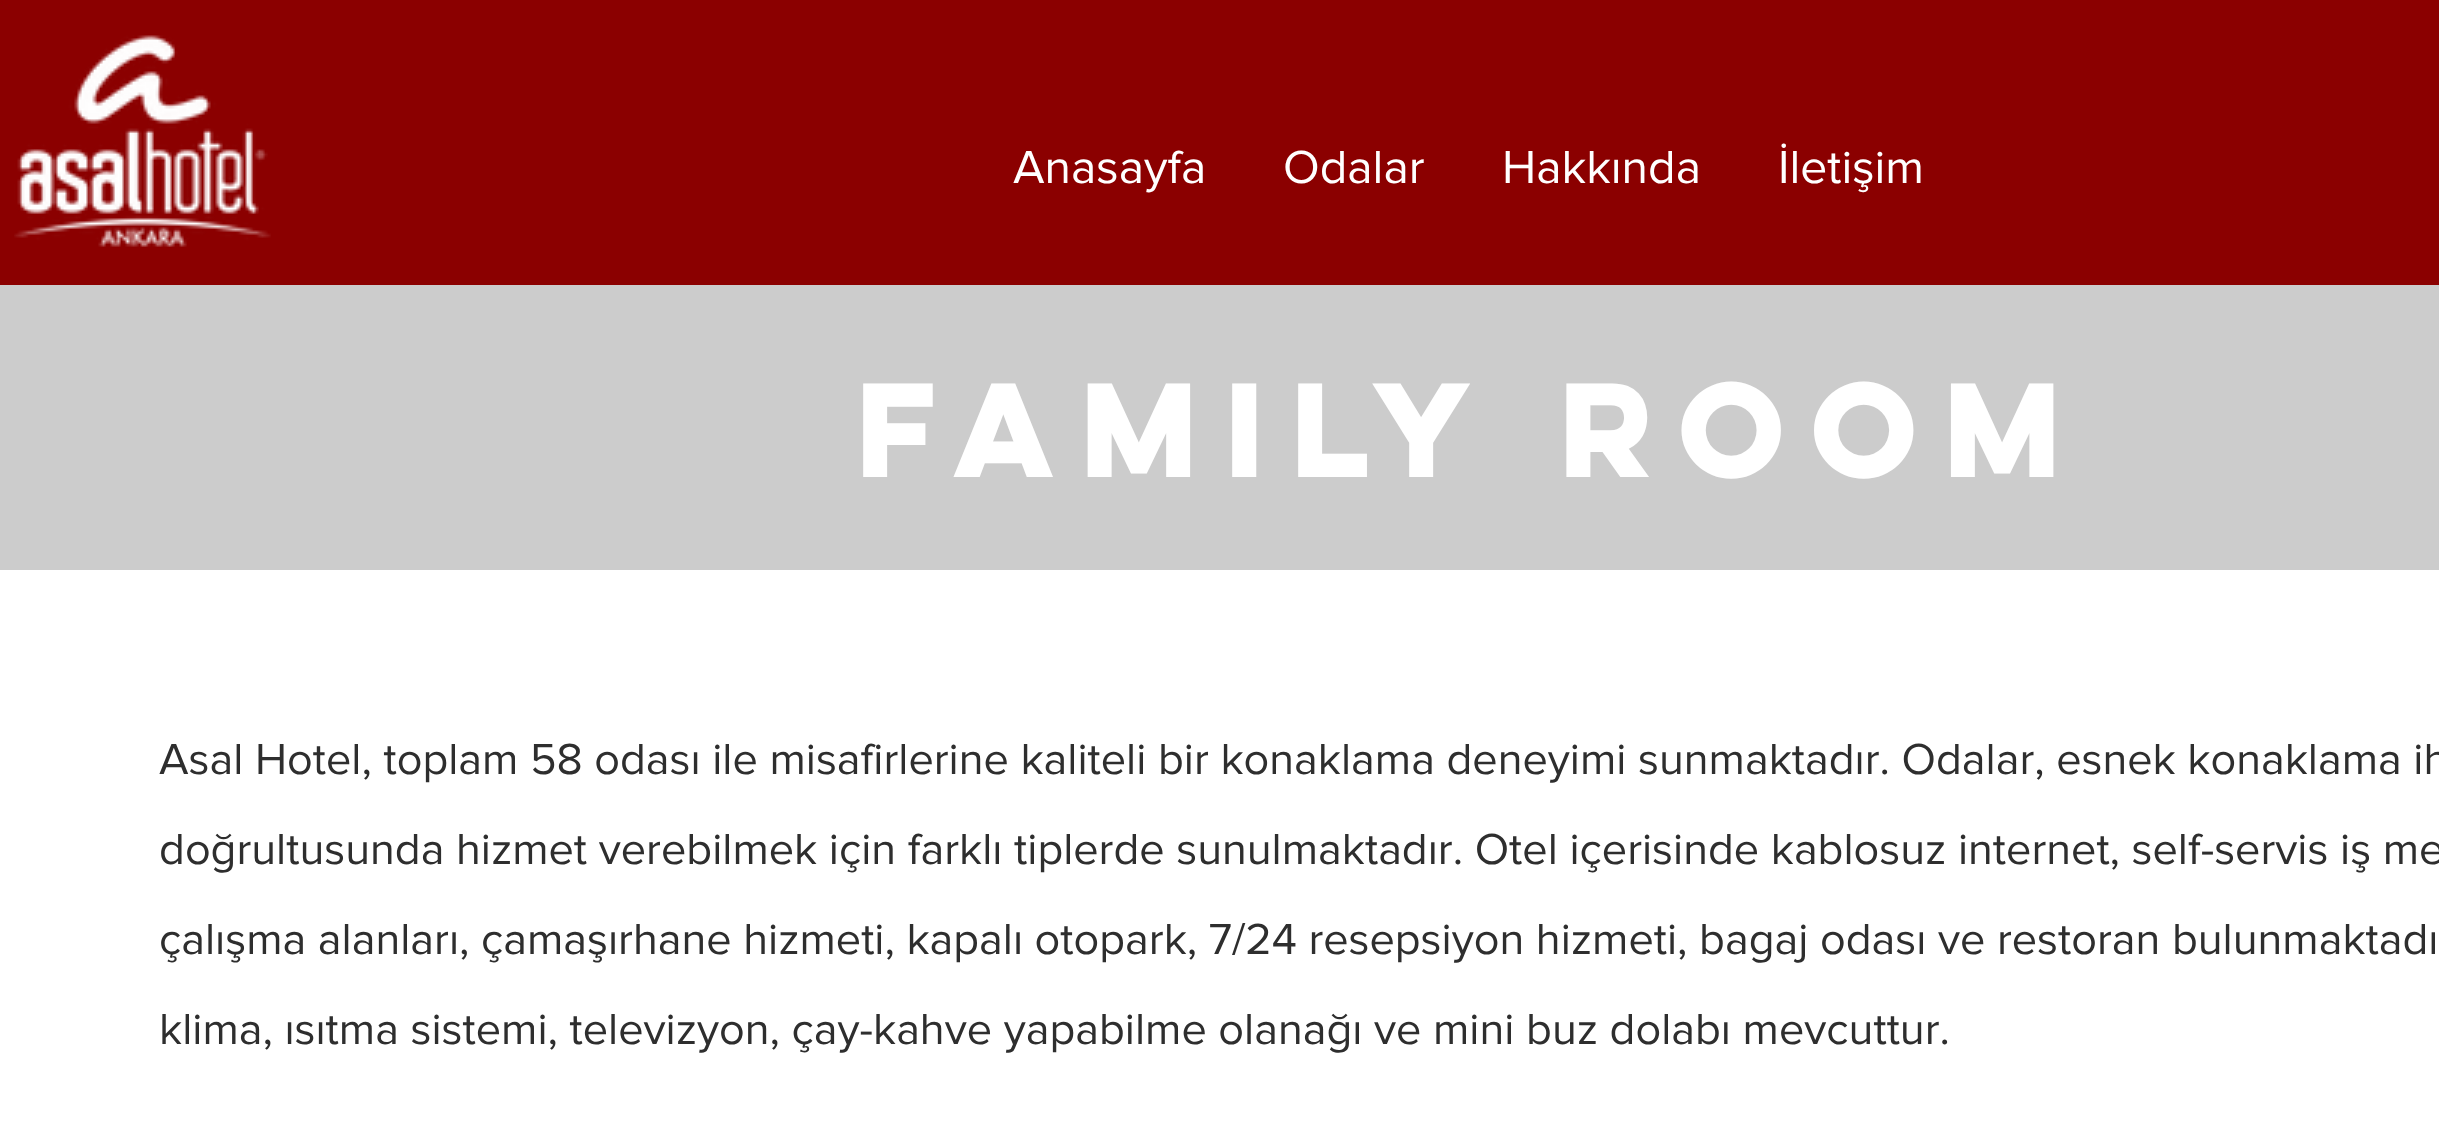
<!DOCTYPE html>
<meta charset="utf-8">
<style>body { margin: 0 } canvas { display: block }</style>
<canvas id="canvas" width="2439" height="1136"></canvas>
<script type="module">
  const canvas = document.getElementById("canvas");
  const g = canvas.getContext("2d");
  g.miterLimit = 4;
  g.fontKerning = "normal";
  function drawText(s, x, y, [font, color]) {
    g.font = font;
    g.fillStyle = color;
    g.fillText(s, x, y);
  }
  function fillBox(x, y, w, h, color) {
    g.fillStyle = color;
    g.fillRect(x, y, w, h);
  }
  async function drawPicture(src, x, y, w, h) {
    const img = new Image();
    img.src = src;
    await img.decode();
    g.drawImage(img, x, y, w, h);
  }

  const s1 = ["48px 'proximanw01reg'", "#FFFFFF"];
  const s2 = ["bold 120px 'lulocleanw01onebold'", "#FFFFFF"];
  const s3 = ["45px 'proximanw01reg'", "#2E2E2E"];

  fillBox(0, 0, 2439, 1136, "#FFFFFF");
  fillBox(0, 0, 2439, 285, "#8B0000");
  await drawPicture("pic1.png", 14, 35, 257, 212);
  drawText("Anasayfa", 1013, 183, s1);
  drawText("Odalar", 1283, 183, s1);
  drawText("Hakkında", 1502, 183, s1);
  drawText("İletişim", 1778, 183, s1);
  fillBox(0, 285, 2439, 285, "#CCCCCC");
  drawText("FAMILY ROOM", 856, 477, s2);
  drawText("Asal Hotel, toplam 58 odası ile misafirlerine kaliteli bir konaklama deneyimi sunmaktadır. Odalar, esnek konaklama ih", 159, 774, s3);
  drawText("doğrultusunda hizmet verebilmek için farklı tiplerde sunulmaktadır. Otel içerisinde kablosuz internet, self-servis iş me", 159, 864, s3);
  drawText("çalışma alanları, çamaşırhane hizmeti, kapalı otopark, 7/24 resepsiyon hizmeti, bagaj odası ve restoran bulunmaktadı", 159, 954, s3);
  drawText("klima, ısıtma sistemi, televizyon, çay-kahve yapabilme olanağı ve mini buz dolabı mevcuttur.", 159, 1044, s3);
</script>
